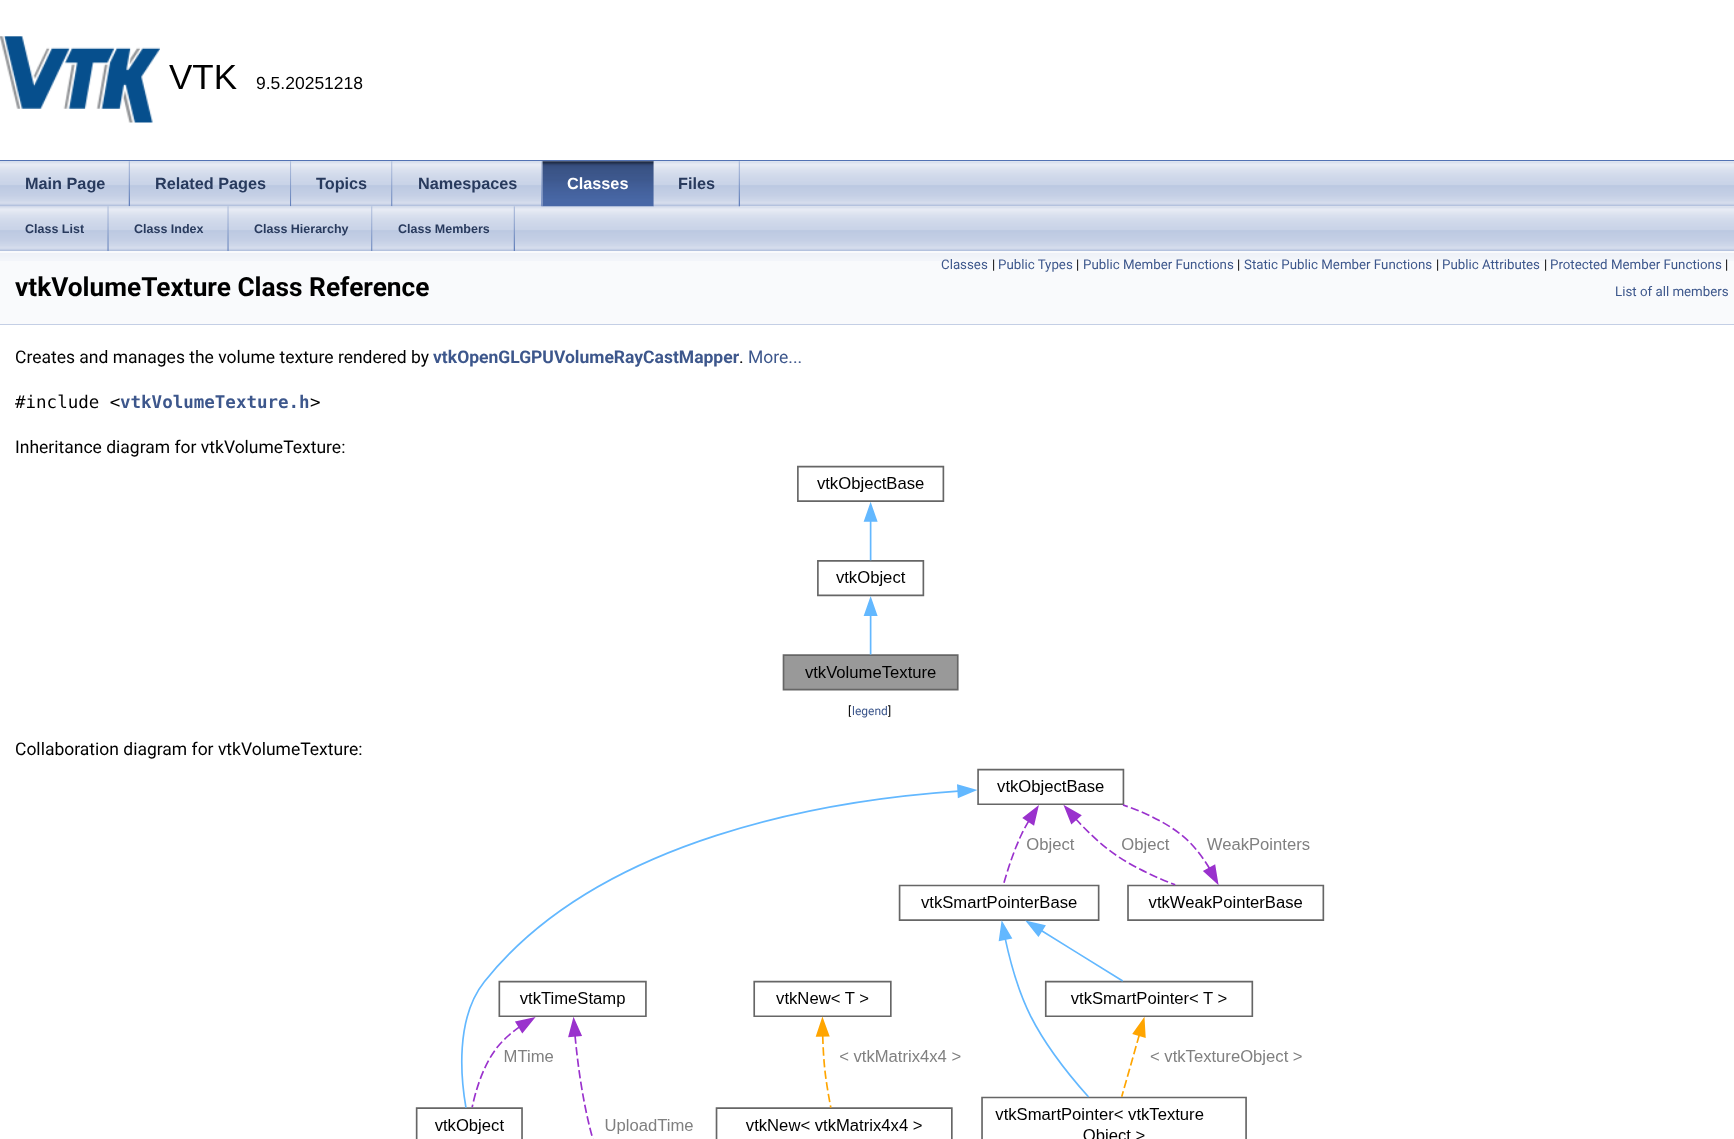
<!DOCTYPE html>
<meta charset="utf-8">
<style>body { margin: 0 } canvas { display: block }</style>
<canvas id="canvas" width="1734" height="1139"></canvas>
<script type="module">
  const canvas = document.getElementById("canvas");
  const g = canvas.getContext("2d");
  g.miterLimit = 4;
  g.fontKerning = "normal";
  function drawText(s, x, y, [font, color]) {
    g.font = font;
    g.fillStyle = color;
    g.fillText(s, x, y);
  }
  function fillBox(x, y, w, h, color) {
    g.fillStyle = color;
    g.fillRect(x, y, w, h);
  }
  async function drawPicture(src, x, y, w, h) {
    const img = new Image();
    img.src = src;
    await img.decode();
    g.drawImage(img, x, y, w, h);
  }

  const s1 = ["35px Liberation Sans", "#000000"];
  const s2 = ["17.5px Liberation Sans", "#000000"];
  const s3 = ["bold 16.25px Liberation Sans", "#283A5D"];
  const s4 = ["bold 16.25px Liberation Sans", "#FFFFFF"];
  const s5 = ["bold 12.5px Liberation Sans", "#283A5D"];
  const s6 = ["bold 26.25px Roboto", "#000000"];
  const s7 = ["13.3px Roboto", "#3D578C"];
  const s8 = ["13.3px Roboto", "#000000"];
  const s9 = ["17.5px Roboto", "#000000"];
  const s10 = ["bold 17.5px Roboto", "#3D578C"];
  const s11 = ["17.5px Roboto", "#3D578C"];
  const s12 = ["17.5px DejaVu Sans Mono", "#000000"];
  const s13 = ["bold 17.5px DejaVu Sans Mono", "#3D578C"];
  const s14 = ["12px Roboto", "#000000"];
  const s15 = ["12px Roboto", "#3D578C"];

  fillBox(0, 0, 1734, 1139, "#FFFFFF");
  fillBox(0, 160, 1734, 1, "#5373B4");
  await drawPicture("pic1.png", 0, 36, 160, 87);
  drawText("VTK", 169, 89, s1);
  drawText("9.5.20251218", 256, 89, s2);
  await drawPicture("pic2.png", 0, 161, 1734, 46);
  await drawPicture("pic13.png", 0, 206, 1734, 45);
  await drawPicture("pic3.png", 0, 161, 130, 46);
  await drawPicture("pic4.png", 128, 161, 2, 46);
  drawText("Main Page", 25, 189, s3);
  await drawPicture("pic5.png", 130, 161, 161, 46);
  await drawPicture("pic6.png", 290, 161, 2, 46);
  drawText("Related Pages", 155, 189, s3);
  await drawPicture("pic7.png", 291, 161, 102, 46);
  await drawPicture("pic8.png", 391, 161, 2, 46);
  drawText("Topics", 316, 189, s3);
  await drawPicture("pic9.png", 392, 161, 151, 46);
  await drawPicture("pic8.png", 541, 161, 2, 46);
  drawText("Namespaces", 418, 189, s3);
  await drawPicture("pic10.png", 542, 161, 112, 46);
  await drawPicture("pic11.png", 542, 161, 112, 46);
  drawText("Classes", 567, 189, s4);
  await drawPicture("pic12.png", 653, 161, 87, 46);
  await drawPicture("pic4.png", 738, 161, 2, 46);
  drawText("Files", 678, 189, s3);
  await drawPicture("pic14.png", 107, 206, 2, 45);
  drawText("Class List", 25, 233, s5);
  await drawPicture("pic15.png", 108, 206, 121, 45);
  await drawPicture("pic16.png", 227, 206, 2, 45);
  drawText("Class Index", 134, 233, s5);
  await drawPicture("pic17.png", 228, 206, 145, 45);
  await drawPicture("pic18.png", 371, 206, 2, 45);
  drawText("Class Hierarchy", 254, 233, s5);
  await drawPicture("pic19.png", 372, 206, 143, 45);
  await drawPicture("pic20.png", 513, 206, 2, 45);
  drawText("Class Members", 398, 233, s5);
  fillBox(0, 251, 1734, 73, "#F9FAFC");
  await drawPicture("pic21.png", 0, 253, 1734, 8);
  fillBox(0, 324, 1734, 1, "#C4CFE5");
  drawText("vtkVolumeTexture Class Reference", 15, 296, s6);
  drawText("Classes", 941, 269, s7);
  drawText("|", 992, 269, s8);
  drawText("Public Types", 998, 269, s7);
  drawText("|", 1076, 269, s8);
  drawText("Public Member Functions", 1083, 269, s7);
  drawText("|", 1237, 269, s8);
  drawText("Static Public Member Functions", 1244, 269, s7);
  drawText("|", 1436, 269, s8);
  drawText("Public Attributes", 1442, 269, s7);
  drawText("|", 1544, 269, s8);
  drawText("Protected Member Functions", 1550, 269, s7);
  drawText("|", 1725, 269, s8);
  drawText("List of all members", 1615, 296, s7);
  drawText("Creates and manages the volume texture rendered by", 15, 363, s9);
  drawText("vtkOpenGLGPUVolumeRayCastMapper", 433, 363, s10);
  drawText(".", 739, 363, s9);
  drawText("More...", 748, 363, s11);
  drawText("#include <", 15, 408, s12);
  drawText("vtkVolumeTexture.h", 120, 408, s13);
  drawText(">", 310, 408, s12);
  drawText("Inheritance diagram for vtkVolumeTexture:", 15, 453, s9);
  await drawPicture("pic22.png", 782, 465, 177, 226);
  drawText("[", 848, 715, s14);
  drawText("legend", 852, 715, s15);
  drawText("]", 888, 715, s14);
  drawText("Collaboration diagram for vtkVolumeTexture:", 15, 755, s9);
  await drawPicture("pic23.png", 415, 768, 910, 371);
</script>
